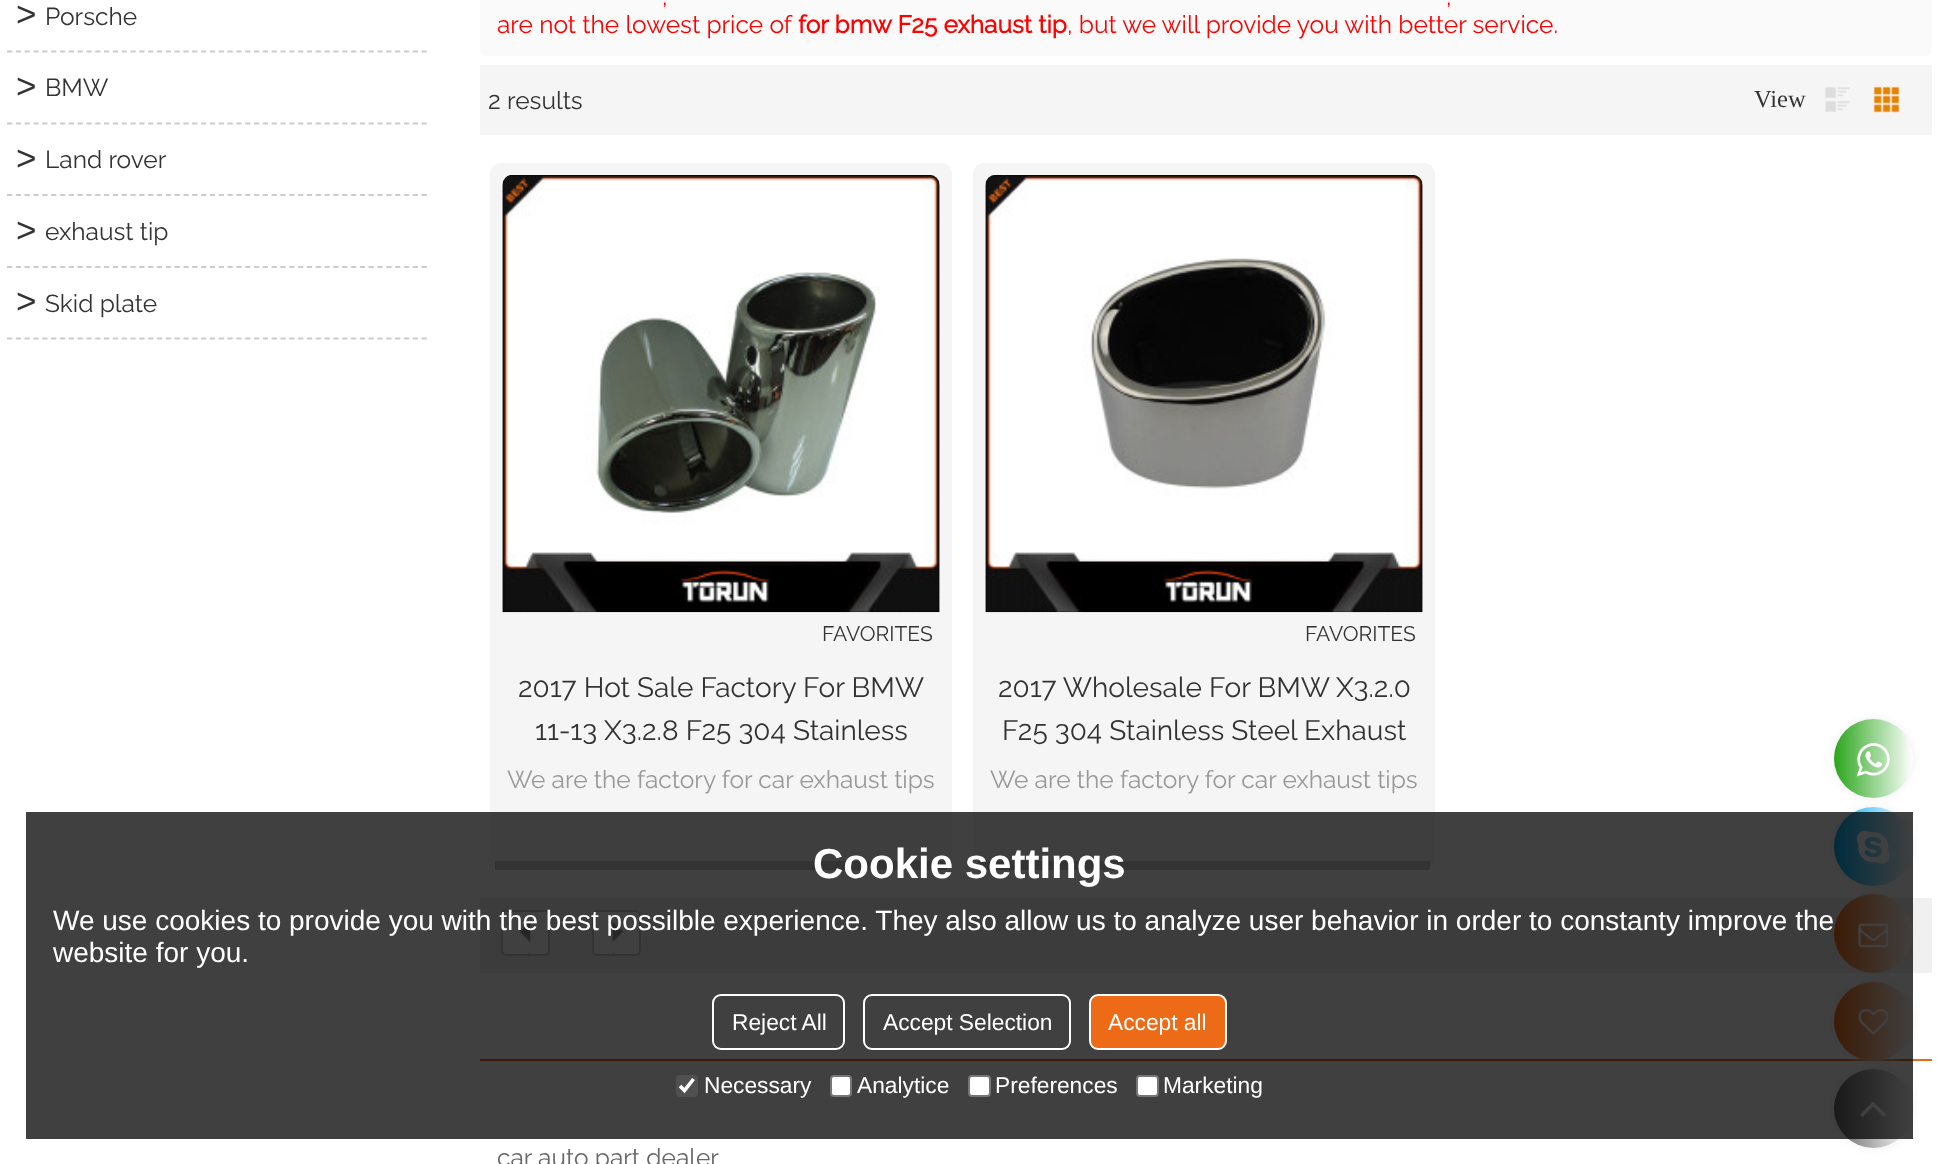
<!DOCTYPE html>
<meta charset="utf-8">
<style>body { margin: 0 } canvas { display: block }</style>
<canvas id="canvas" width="1938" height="1164"></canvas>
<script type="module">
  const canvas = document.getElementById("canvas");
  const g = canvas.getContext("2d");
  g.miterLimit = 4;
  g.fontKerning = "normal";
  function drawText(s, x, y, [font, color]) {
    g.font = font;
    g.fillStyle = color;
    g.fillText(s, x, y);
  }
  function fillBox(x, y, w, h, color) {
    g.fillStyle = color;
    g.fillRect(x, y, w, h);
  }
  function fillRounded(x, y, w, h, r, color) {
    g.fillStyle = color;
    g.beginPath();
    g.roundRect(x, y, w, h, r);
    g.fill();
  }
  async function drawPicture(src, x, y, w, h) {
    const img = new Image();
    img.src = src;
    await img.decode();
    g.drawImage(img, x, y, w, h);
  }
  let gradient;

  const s1 = ["35px Liberation Sans", "#333333"];
  const s2 = ["100 24.5px Raleway", "#333333"];
  const s3 = ["100 24.5px Raleway", "#FF0000"];
  const s4 = ["bold 24.5px Raleway", "#FF0000"];
  const s5 = ["24.5px Liberation Serif", "#333333"];
  const s6 = ["100 21px Raleway", "#333333"];
  const s7 = ["100 28px Raleway", "#333333"];
  const s8 = ["100 24.5px Raleway", "#999999"];
  const s9 = ["100 24.5px Raleway", "#666666"];
  const s10 = ["bold 42px Liberation Sans", "#FFFFFF"];
  const s11 = ["28px Liberation Sans", "#FFFFFF"];
  const s12 = ["22.75px Liberation Sans", "#FFFFFF"];

  fillBox(0, 0, 1938, 1164, "#FFFFFF");
  g.beginPath();
  g.moveTo(7, 51.5);
  g.lineTo(427, 51.5);
  g.strokeStyle = "#CCCCCC";
  g.lineWidth = 1.8;
  g.setLineDash([5.25, 3.57]);
  g.stroke();
  drawText(">", 16, 26, s1);
  drawText("Porsche", 45, 25, s2);
  g.beginPath();
  g.moveTo(7, 123.5);
  g.lineTo(427, 123.5);
  g.stroke();
  drawText(">", 16, 98, s1);
  drawText("BMW", 45, 96, s2);
  g.beginPath();
  g.moveTo(7, 195);
  g.lineTo(427, 195);
  g.stroke();
  drawText(">", 16, 170, s1);
  drawText("Land rover", 45, 168, s2);
  g.beginPath();
  g.moveTo(7, 267);
  g.lineTo(427, 267);
  g.stroke();
  drawText(">", 16, 242, s1);
  drawText("exhaust tip", 45, 240, s2);
  g.beginPath();
  g.moveTo(7, 338.5);
  g.lineTo(427, 338.5);
  g.stroke();
  drawText(">", 16, 313, s1);
  drawText("Skid plate", 45, 312, s2);
  fillRounded(480, -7, 1452, 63, 7, "#FAFAFA");
  drawText(",", 662, 5, s3);
  drawText(",", 1446, 5, s3);
  drawText("are not the lowest price of", 497, 33, s3);
  drawText("for bmw F25 exhaust tip", 798, 33, s4);
  drawText(", but we will provide you with better service.", 1067, 33, s3);
  fillBox(480, 65, 1452, 70, "#F5F5F5");
  drawText("2 results", 488, 109, s2);
  drawText("View", 1754, 107, s5);
  await drawPicture("pic1.png", 1825, 87, 25, 25);
  await drawPicture("pic2.png", 1873, 86, 27, 27);
  fillRounded(490, 163, 462, 707, 11, "#F5F5F5");
  fillBox(495, 861, 452, 9, "#CCCCCC");
  await drawPicture("pic3.png", 502, 175, 438, 438);
  drawText("FAVORITES", 822, 641, s6);
  drawText("2017 Hot Sale Factory For BMW", 518, 697, s7);
  drawText("11-13 X3.2.8 F25 304 Stainless", 535, 740, s7);
  drawText("We are the factory for car exhaust tips", 507, 788, s8);
  fillRounded(973, 163, 462, 707, 11, "#F5F5F5");
  fillBox(978, 861, 452, 9, "#CCCCCC");
  await drawPicture("pic4.png", 985, 175, 438, 438);
  drawText("FAVORITES", 1305, 641, s6);
  drawText("2017 Wholesale For BMW X3.2.0", 998, 697, s7);
  drawText("F25 304 Stainless Steel Exhaust", 1002, 740, s7);
  drawText("We are the factory for car exhaust tips", 990, 788, s8);
  fillBox(480, 898, 1452, 75, "#F0F0F0");
  fillRounded(501, 910, 49, 46, 5, "#FFFFFF");
  await drawPicture("pic5.png", 519, 921, 12, 33);
  g.beginPath();
  g.roundRect(502, 911, 47, 44, 4);
  g.lineWidth = 2;
  g.setLineDash([]);
  g.stroke();
  fillRounded(592, 910, 49, 46, 5, "#FFFFFF");
  await drawPicture("pic6.png", 612, 921, 12, 33);
  g.beginPath();
  g.roundRect(593, 911, 47, 44, 4);
  g.stroke();
  fillBox(480, 1059, 1452, 2, "#ED6B17");
  drawText("car auto part dealer", 497, 1166, s9);
  g.fillStyle = "#EEEEEE";
  g.filter = "blur(4.5px)";
  g.beginPath();
  g.roundRect(1834, 719, 79, 79, 39.5);
  g.fill();
  g.filter = "none";
  gradient = g.createLinearGradient(1834, 759, 1913, 759);
  gradient.addColorStop(0, "#29A61A");
  gradient.addColorStop(1, "#FFFFFF");
  g.fillStyle = gradient;
  g.beginPath();
  g.arc(1873.5, 758.5, 39.5, 0, Math.PI * 2);
  g.fill();
  await drawPicture("pic7.png", 1856, 743, 34, 34);
  g.fillStyle = "#EEEEEE";
  g.filter = "blur(4.5px)";
  g.beginPath();
  g.roundRect(1834, 807, 79, 79, 39.5);
  g.fill();
  g.filter = "none";
  gradient = g.createLinearGradient(1834, 846, 1913, 846);
  gradient.addColorStop(0, "#01AEF3");
  gradient.addColorStop(1, "#FFFFFF");
  g.fillStyle = gradient;
  g.beginPath();
  g.arc(1873.5, 846.5, 39.5, 0, Math.PI * 2);
  g.fill();
  await drawPicture("pic8.png", 1856, 830, 34, 34);
  g.fillStyle = "#EEEEEE";
  g.filter = "blur(4.5px)";
  g.beginPath();
  g.roundRect(1834, 894, 79, 79, 39.5);
  g.fill();
  g.filter = "none";
  gradient = g.createLinearGradient(1834, 934, 1913, 934);
  gradient.addColorStop(0, "#ED6B17");
  gradient.addColorStop(1, "#FFFFFF");
  g.fillStyle = gradient;
  g.beginPath();
  g.arc(1873.5, 933.5, 39.5, 0, Math.PI * 2);
  g.fill();
  await drawPicture("pic9.png", 1858, 923, 31, 25);
  g.fillStyle = "#EEEEEE";
  g.filter = "blur(4.5px)";
  g.beginPath();
  g.roundRect(1834, 982, 79, 79, 39.5);
  g.fill();
  g.filter = "none";
  gradient = g.createLinearGradient(1834, 1021, 1913, 1021);
  gradient.addColorStop(0, "#ED6B17");
  gradient.addColorStop(1, "#FFFFFF");
  g.fillStyle = gradient;
  g.beginPath();
  g.arc(1873.5, 1021.5, 39.5, 0, Math.PI * 2);
  g.fill();
  await drawPicture("pic10.png", 1858, 1009, 31, 26);
  g.fillStyle = "#EEEEEE";
  g.filter = "blur(4.5px)";
  g.beginPath();
  g.roundRect(1834, 1069, 79, 79, 39.5);
  g.fill();
  g.filter = "none";
  gradient = g.createLinearGradient(1834, 1109, 1913, 1109);
  gradient.addColorStop(0, "#666666");
  gradient.addColorStop(1, "#FFFFFF");
  g.fillStyle = gradient;
  g.beginPath();
  g.arc(1873.5, 1108.5, 39.5, 0, Math.PI * 2);
  g.fill();
  await drawPicture("pic11.png", 1860, 1102, 26, 15);
  fillBox(26, 812, 1887, 327, "rgba(0, 0, 0, 0.75)");
  drawText("Cookie settings", 813, 878, s10);
  drawText("We use cookies to provide you with the best possilble experience. They also allow us to analyze user behavior in order to constanty improve the", 53, 930, s11);
  drawText("website for you.", 53, 962, s11);
  g.beginPath();
  g.roundRect(713, 995, 131, 54, 8);
  g.strokeStyle = "#FFFFFF";
  g.stroke();
  drawText("Reject All", 732, 1030, s12);
  g.beginPath();
  g.roundRect(864, 995, 206, 54, 8);
  g.stroke();
  drawText("Accept Selection", 883, 1030, s12);
  g.fillStyle = "#ED6B17";
  g.beginPath();
  g.roundRect(1090, 995, 136, 54, 8);
  g.fill();
  g.stroke();
  drawText("Accept all", 1108, 1030, s12);
  fillRounded(676, 1075, 22, 22, 4, "#505050");
  g.beginPath();
  g.moveTo(680, 1086);
  g.lineTo(684.5, 1090.5);
  g.lineTo(693.5, 1079);
  g.lineWidth = 3.6;
  g.stroke();
  drawText("Necessary", 704, 1093, s12);
  g.beginPath();
  g.roundRect(831, 1076, 20, 20, 3);
  g.fill();
  g.strokeStyle = "#767676";
  g.lineWidth = 2;
  g.stroke();
  drawText("Analytice", 857, 1093, s12);
  g.beginPath();
  g.roundRect(969, 1076, 21, 20, 3);
  g.fill();
  g.stroke();
  drawText("Preferences", 995, 1093, s12);
  g.beginPath();
  g.roundRect(1137, 1076, 21, 20, 3);
  g.fill();
  g.stroke();
  drawText("Marketing", 1163, 1093, s12);
</script>
